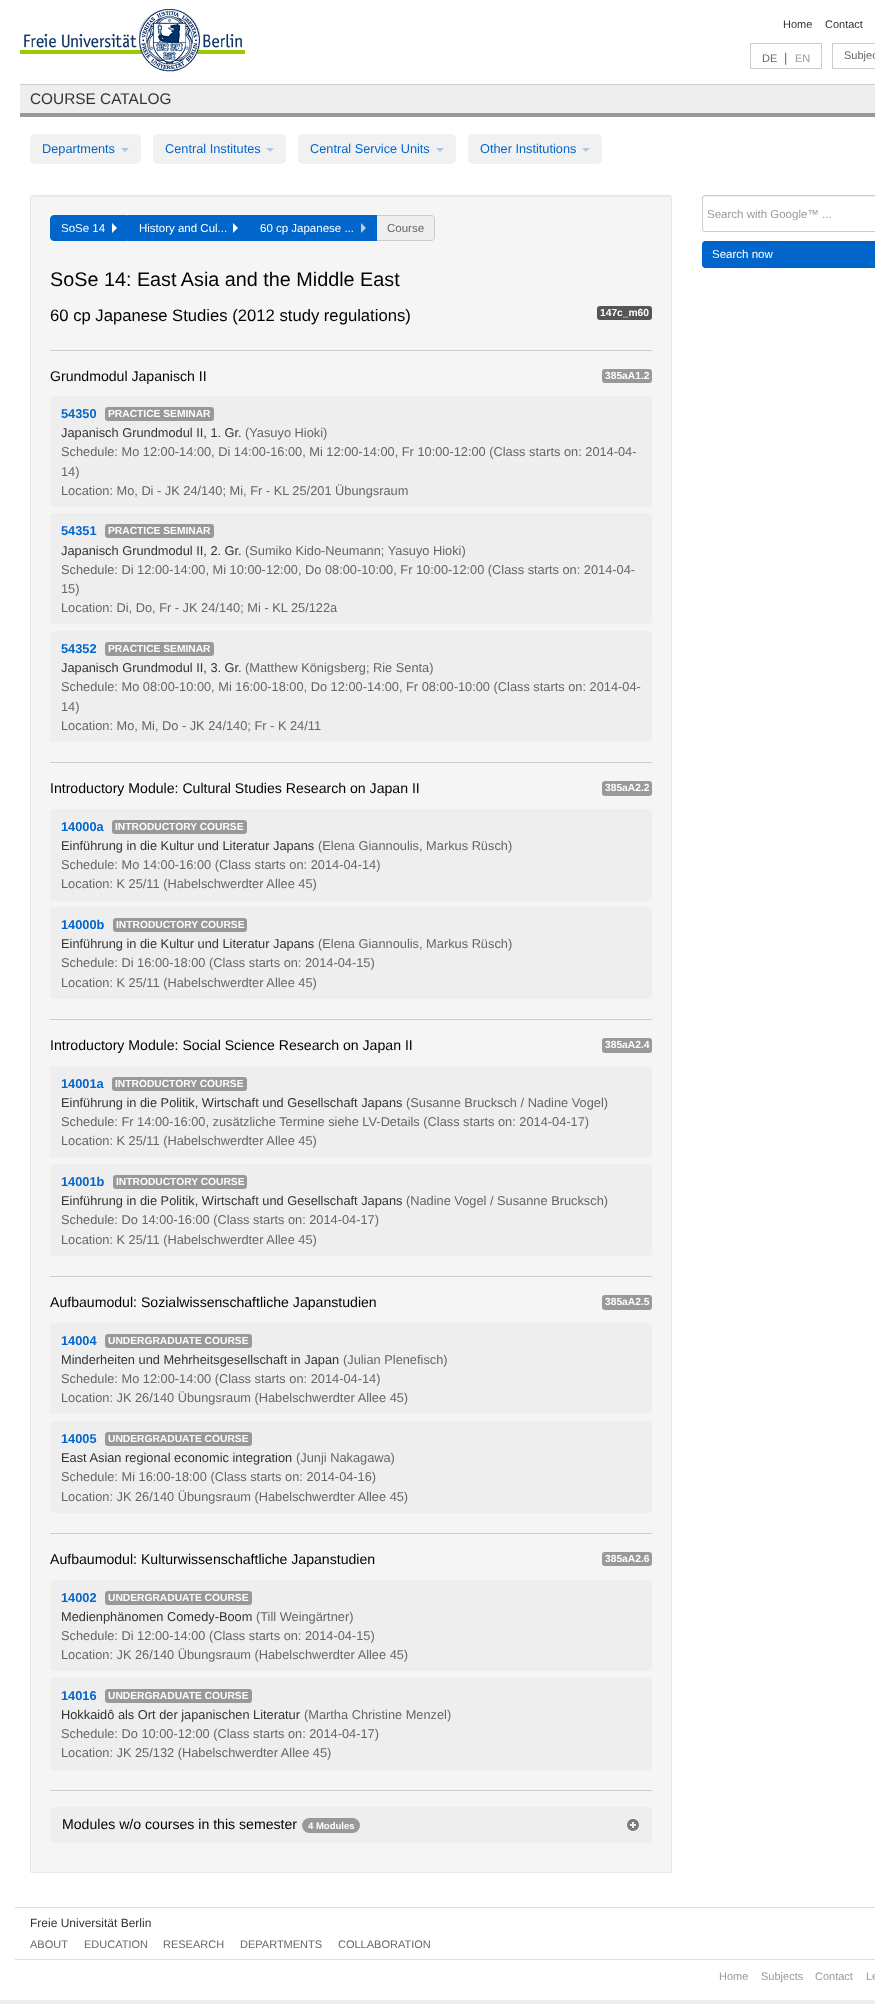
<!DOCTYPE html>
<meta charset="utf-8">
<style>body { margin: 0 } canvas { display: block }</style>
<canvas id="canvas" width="875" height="2004"></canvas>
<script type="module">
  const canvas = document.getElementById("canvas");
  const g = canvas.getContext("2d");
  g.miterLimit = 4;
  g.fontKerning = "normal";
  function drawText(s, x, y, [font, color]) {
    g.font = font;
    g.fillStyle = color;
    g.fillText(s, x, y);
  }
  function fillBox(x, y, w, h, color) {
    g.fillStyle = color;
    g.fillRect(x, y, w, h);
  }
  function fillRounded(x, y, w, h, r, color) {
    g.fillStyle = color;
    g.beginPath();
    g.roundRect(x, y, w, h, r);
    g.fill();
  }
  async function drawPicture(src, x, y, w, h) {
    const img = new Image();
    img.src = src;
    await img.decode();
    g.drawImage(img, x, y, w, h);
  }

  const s1 = ["11px Liberation Sans", "#333333"];
  const s2 = ["11px Liberation Sans", "#666666"];
  const s3 = ["12.75px Liberation Sans", "#666666"];
  const s4 = ["11px Liberation Sans", "#999999"];
  const s5 = ["15.4px Liberation Sans", "#333333"];
  const s6 = ["12.75px Liberation Sans", "#0066CC"];
  const s7 = ["11.5px Liberation Sans", "#FFFFFF"];
  const s8 = ["11.5px Liberation Sans", "#666666"];
  const s9 = ["19.8px Liberation Sans", "#000000"];
  const s10 = ["16.65px Liberation Sans", "#000000"];
  const s11 = ["bold 10.25px Liberation Sans", "#FFFFFF"];
  const s12 = ["14.1px Liberation Sans", "#000000"];
  const s13 = ["bold 12.8px Liberation Sans", "#0066CC"];
  const s14 = ["12.8px Liberation Sans", "#333333"];
  const s15 = ["12.8px Liberation Sans", "#666666"];
  const s16 = ["bold 9.5px Liberation Sans", "#FFFFFF"];
  const s17 = ["11.5px Liberation Sans", "#999999"];
  const s18 = ["12px Liberation Sans", "#333333"];

  fillBox(0, 0, 875, 2004, "#EEEEEE");
  fillBox(0, 0, 875, 2000, "#FFFFFF");
  await drawPicture("pic1.png", 20, 9, 225, 63);
  drawText("Home", 783, 28, s1);
  drawText("Contact", 825, 28, s1);
  g.strokeStyle = "#CCCCCC";
  g.strokeRect(750.5, 43.5, 71, 25);
  drawText("DE", 762, 62, s2);
  drawText("|", 784, 62, s3);
  drawText("EN", 795, 62, s4);
  g.strokeRect(832.5, 43.5, 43, 25);
  drawText("Subjec", 844, 59, s2);
  fillBox(20, 85, 855, 28, "#EEEEEE");
  fillBox(20, 84, 855, 1, "#CCCCCC");
  fillBox(20, 113, 855, 4, "#999999");
  drawText("COURSE CATALOG", 30, 104, s5);
  fillRounded(30, 134, 111, 30, 5, "#F1F1F1");
  drawText("Departments", 42, 153, s6);
  g.fillStyle = "#A9C7E6";
  g.beginPath();
  g.moveTo(121, 148);
  g.lineTo(129, 148);
  g.lineTo(125, 152);
  g.closePath();
  g.fill();
  fillRounded(153, 134, 133, 30, 5, "#F1F1F1");
  drawText("Central Institutes", 165, 153, s6);
  g.fillStyle = "#A9C7E6";
  g.beginPath();
  g.moveTo(266, 148);
  g.lineTo(274, 148);
  g.lineTo(270, 152);
  g.closePath();
  g.fill();
  fillRounded(298, 134, 158, 30, 5, "#F1F1F1");
  drawText("Central Service Units", 310, 153, s6);
  g.fillStyle = "#A9C7E6";
  g.beginPath();
  g.moveTo(436, 148);
  g.lineTo(444, 148);
  g.lineTo(440, 152);
  g.closePath();
  g.fill();
  fillRounded(468, 134, 134, 30, 5, "#F1F1F1");
  drawText("Other Institutions", 480, 153, s6);
  g.fillStyle = "#A9C7E6";
  g.beginPath();
  g.moveTo(582, 148);
  g.lineTo(590, 148);
  g.lineTo(586, 152);
  g.closePath();
  g.fill();
  fillRounded(30, 195, 642, 1678, 4, "#F5F5F5");
  g.fillStyle = "#E9E9E9";
  g.beginPath();
  g.moveTo(34, 197);
  g.lineTo(668, 197);
  g.bezierCurveTo(670, 197, 671, 198, 671, 200);
  g.lineTo(671, 199);
  g.bezierCurveTo(671, 197, 670, 196, 668, 196);
  g.lineTo(34, 196);
  g.bezierCurveTo(32, 196, 31, 197, 31, 199);
  g.lineTo(31, 200);
  g.bezierCurveTo(31, 198, 32, 197, 34, 197);
  g.closePath();
  g.fill();
  g.strokeStyle = "rgba(0, 0, 0, 0.05)";
  g.strokeRect(30.5, 195.5, 641, 1677);
  g.fillStyle = "#0066CC";
  g.beginPath();
  g.roundRect(50.5, 215.5, 77, 25, [3.5, 0, 0, 3.5]);
  g.fill();
  g.strokeStyle = "#0066CC";
  g.stroke();
  drawText("SoSe 14", 61, 232, s7);
  g.beginPath();
  g.moveTo(112, 233);
  g.lineTo(112, 223);
  g.lineTo(117, 228);
  g.closePath();
  g.fill();
  fillBox(128, 215, 249, 26, "#0066CC");
  drawText("History and Cul...", 139, 232, s7);
  g.beginPath();
  g.moveTo(233, 233);
  g.lineTo(233, 223);
  g.lineTo(238, 228);
  g.closePath();
  g.fill();
  drawText("60 cp Japanese ...", 260, 232, s7);
  g.fillStyle = "#CCCCCC";
  g.beginPath();
  g.moveTo(361, 233);
  g.lineTo(361, 223);
  g.lineTo(366, 228);
  g.closePath();
  g.fill();
  g.fillStyle = "#EEEEEE";
  g.beginPath();
  g.roundRect(377, 215, 58, 26, [0, 4, 4, 0]);
  g.fill();
  g.fillStyle = "#CCCCCC";
  g.beginPath();
  g.moveTo(377, 215);
  g.lineTo(431, 215);
  g.bezierCurveTo(433, 215, 435, 217, 435, 219);
  g.lineTo(435, 237);
  g.bezierCurveTo(435, 239, 433, 241, 431, 241);
  g.lineTo(377, 241);
  g.closePath();
  g.moveTo(377, 216);
  g.lineTo(431, 216);
  g.bezierCurveTo(433, 216, 434, 217, 434, 219);
  g.lineTo(434, 237);
  g.bezierCurveTo(434, 239, 433, 240, 431, 240);
  g.lineTo(377, 240);
  g.closePath();
  g.fill("evenodd");
  drawText("Course", 387, 232, s8);
  drawText("SoSe 14: East Asia and the Middle East", 50, 286, s9);
  drawText("60 cp Japanese Studies (2012 study regulations)", 50, 321, s10);
  fillRounded(597, 306, 55, 14, 3, "#555555");
  drawText("147c_m60", 600, 316, s11);
  fillBox(50, 350, 602, 1, "#CCCCCC");
  drawText("Grundmodul Japanisch II", 50, 381, s12);
  fillRounded(602, 369, 50, 14, 3, "#999999");
  drawText("385aA1.2", 605, 379, s11);
  fillRounded(50, 396, 602, 111, 4, "#EEEEEE");
  drawText("54350", 61, 418, s13);
  fillRounded(105, 407, 109, 14, 3, "#999999");
  drawText("PRACTICE SEMINAR", 108, 417, s11);
  drawText("Japanisch Grundmodul II, 1. Gr.", 61, 437, s14);
  drawText("(Yasuyo Hioki)", 245, 437, s15);
  drawText("Schedule: Mo 12:00-14:00, Di 14:00-16:00, Mi 12:00-14:00, Fr 10:00-12:00 (Class starts on: 2014-04-", 61, 456, s15);
  drawText("14)", 61, 476, s15);
  drawText("Location: Mo, Di - JK 24/140; Mi, Fr - KL 25/201 Übungsraum", 61, 495, s15);
  fillRounded(50, 513, 602, 111, 4, "#EEEEEE");
  drawText("54351", 61, 535, s13);
  fillRounded(105, 524, 109, 14, 3, "#999999");
  drawText("PRACTICE SEMINAR", 108, 534, s11);
  drawText("Japanisch Grundmodul II, 2. Gr.", 61, 555, s14);
  drawText("(Sumiko Kido-Neumann; Yasuyo Hioki)", 245, 555, s15);
  drawText("Schedule: Di 12:00-14:00, Mi 10:00-12:00, Do 08:00-10:00, Fr 10:00-12:00 (Class starts on: 2014-04-", 61, 574, s15);
  drawText("15)", 61, 593, s15);
  drawText("Location: Di, Do, Fr - JK 24/140; Mi - KL 25/122a", 61, 612, s15);
  fillRounded(50, 631, 602, 111, 4, "#EEEEEE");
  drawText("54352", 61, 653, s13);
  fillRounded(105, 642, 109, 14, 3, "#999999");
  drawText("PRACTICE SEMINAR", 108, 652, s11);
  drawText("Japanisch Grundmodul II, 3. Gr.", 61, 672, s14);
  drawText("(Matthew Königsberg; Rie Senta)", 245, 672, s15);
  drawText("Schedule: Mo 08:00-10:00, Mi 16:00-18:00, Do 12:00-14:00, Fr 08:00-10:00 (Class starts on: 2014-04-", 61, 691, s15);
  drawText("14)", 61, 711, s15);
  drawText("Location: Mo, Mi, Do - JK 24/140; Fr - K 24/11", 61, 730, s15);
  fillBox(50, 762, 602, 1, "#CCCCCC");
  drawText("Introductory Module: Cultural Studies Research on Japan II", 50, 793, s12);
  fillRounded(602, 781, 50, 15, 3, "#999999");
  drawText("385aA2.2", 605, 791, s11);
  fillRounded(50, 809, 602, 92, 4, "#EEEEEE");
  drawText("14000a", 61, 831, s13);
  fillRounded(112, 820, 135, 14, 3, "#999999");
  drawText("INTRODUCTORY COURSE", 115, 830, s11);
  drawText("Einführung in die Kultur und Literatur Japans", 61, 850, s14);
  drawText("(Elena Giannoulis, Markus Rüsch)", 318, 850, s15);
  drawText("Schedule: Mo 14:00-16:00 (Class starts on: 2014-04-14)", 61, 869, s15);
  drawText("Location: K 25/11 (Habelschwerdter Allee 45)", 61, 888, s15);
  fillRounded(50, 907, 602, 92, 4, "#EEEEEE");
  drawText("14000b", 61, 929, s13);
  fillRounded(113, 918, 134, 14, 3, "#999999");
  drawText("INTRODUCTORY COURSE", 116, 928, s11);
  drawText("Einführung in die Kultur und Literatur Japans", 61, 948, s14);
  drawText("(Elena Giannoulis, Markus Rüsch)", 318, 948, s15);
  drawText("Schedule: Di 16:00-18:00 (Class starts on: 2014-04-15)", 61, 967, s15);
  drawText("Location: K 25/11 (Habelschwerdter Allee 45)", 61, 987, s15);
  fillBox(50, 1019, 602, 1, "#CCCCCC");
  drawText("Introductory Module: Social Science Research on Japan II", 50, 1050, s12);
  fillRounded(602, 1038, 50, 15, 3, "#999999");
  drawText("385aA2.4", 605, 1048, s11);
  fillRounded(50, 1066, 602, 92, 4, "#EEEEEE");
  drawText("14001a", 61, 1088, s13);
  fillRounded(112, 1077, 135, 14, 3, "#999999");
  drawText("INTRODUCTORY COURSE", 115, 1087, s11);
  drawText("Einführung in die Politik, Wirtschaft und Gesellschaft Japans", 61, 1107, s14);
  drawText("(Susanne Brucksch / Nadine Vogel)", 406, 1107, s15);
  drawText("Schedule: Fr 14:00-16:00, zusätzliche Termine siehe LV-Details (Class starts on: 2014-04-17)", 61, 1126, s15);
  drawText("Location: K 25/11 (Habelschwerdter Allee 45)", 61, 1145, s15);
  fillRounded(50, 1164, 602, 92, 4, "#EEEEEE");
  drawText("14001b", 61, 1186, s13);
  fillRounded(113, 1175, 134, 14, 3, "#999999");
  drawText("INTRODUCTORY COURSE", 116, 1185, s11);
  drawText("Einführung in die Politik, Wirtschaft und Gesellschaft Japans", 61, 1205, s14);
  drawText("(Nadine Vogel / Susanne Brucksch)", 406, 1205, s15);
  drawText("Schedule: Do 14:00-16:00 (Class starts on: 2014-04-17)", 61, 1224, s15);
  drawText("Location: K 25/11 (Habelschwerdter Allee 45)", 61, 1244, s15);
  fillBox(50, 1276, 602, 1, "#CCCCCC");
  drawText("Aufbaumodul: Sozialwissenschaftliche Japanstudien", 50, 1307, s12);
  fillRounded(602, 1295, 50, 15, 3, "#999999");
  drawText("385aA2.5", 605, 1305, s11);
  fillRounded(50, 1323, 602, 91, 4, "#EEEEEE");
  drawText("14004", 61, 1345, s13);
  fillRounded(105, 1334, 147, 14, 3, "#999999");
  drawText("UNDERGRADUATE COURSE", 108, 1344, s11);
  drawText("Minderheiten und Mehrheitsgesellschaft in Japan", 61, 1364, s14);
  drawText("(Julian Plenefisch)", 343, 1364, s15);
  drawText("Schedule: Mo 12:00-14:00 (Class starts on: 2014-04-14)", 61, 1383, s15);
  drawText("Location: JK 26/140 Übungsraum (Habelschwerdter Allee 45)", 61, 1402, s15);
  fillRounded(50, 1421, 602, 92, 4, "#EEEEEE");
  drawText("14005", 61, 1443, s13);
  fillRounded(105, 1432, 147, 14, 3, "#999999");
  drawText("UNDERGRADUATE COURSE", 108, 1442, s11);
  drawText("East Asian regional economic integration", 61, 1462, s14);
  drawText("(Junji Nakagawa)", 296, 1462, s15);
  drawText("Schedule: Mi 16:00-18:00 (Class starts on: 2014-04-16)", 61, 1481, s15);
  drawText("Location: JK 26/140 Übungsraum (Habelschwerdter Allee 45)", 61, 1501, s15);
  fillBox(50, 1533, 602, 1, "#CCCCCC");
  drawText("Aufbaumodul: Kulturwissenschaftliche Japanstudien", 50, 1564, s12);
  fillRounded(602, 1552, 50, 14, 3, "#999999");
  drawText("385aA2.6", 605, 1562, s11);
  fillRounded(50, 1580, 602, 91, 4, "#EEEEEE");
  drawText("14002", 61, 1602, s13);
  fillRounded(105, 1591, 147, 14, 3, "#999999");
  drawText("UNDERGRADUATE COURSE", 108, 1601, s11);
  drawText("Medienphänomen Comedy-Boom", 61, 1621, s14);
  drawText("(Till Weingärtner)", 256, 1621, s15);
  drawText("Schedule: Di 12:00-14:00 (Class starts on: 2014-04-15)", 61, 1640, s15);
  drawText("Location: JK 26/140 Übungsraum (Habelschwerdter Allee 45)", 61, 1659, s15);
  fillRounded(50, 1678, 602, 92, 4, "#EEEEEE");
  drawText("14016", 61, 1700, s13);
  fillRounded(105, 1689, 147, 14, 3, "#999999");
  drawText("UNDERGRADUATE COURSE", 108, 1699, s11);
  drawText("Hokkaidô als Ort der japanischen Literatur", 61, 1719, s14);
  drawText("(Martha Christine Menzel)", 304, 1719, s15);
  drawText("Schedule: Do 10:00-12:00 (Class starts on: 2014-04-17)", 61, 1738, s15);
  drawText("Location: JK 25/132 (Habelschwerdter Allee 45)", 61, 1757, s15);
  fillBox(50, 1790, 602, 1, "#CCCCCC");
  fillRounded(50, 1807, 602, 36, 4, "#EEEEEE");
  drawText("Modules w/o courses in this semester", 62, 1829, s12);
  fillRounded(302, 1818, 58, 15, 7.5, "#999999");
  drawText("4 Modules", 308, 1829, s16);
  await drawPicture("pic2.png", 627, 1819, 12, 12);
  g.fillStyle = "#ECECEC";
  g.beginPath();
  g.moveTo(705, 197);
  g.lineTo(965, 197);
  g.bezierCurveTo(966, 197, 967, 198, 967, 199);
  g.lineTo(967, 198);
  g.bezierCurveTo(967, 197, 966, 196, 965, 196);
  g.lineTo(705, 196);
  g.bezierCurveTo(704, 196, 703, 197, 703, 198);
  g.lineTo(703, 199);
  g.bezierCurveTo(703, 198, 704, 197, 705, 197);
  g.closePath();
  g.fill();
  g.beginPath();
  g.roundRect(702.5, 195.5, 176, 36, 2.5);
  g.strokeStyle = "#CCCCCC";
  g.stroke();
  g.save();
  g.beginPath();
  g.rect(707, 208, 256, 12);
  g.clip();
  drawText("Search with Google™ ...", 707, 218, s17);
  g.restore();
  fillRounded(702, 241, 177, 27, 4, "#0066CC");
  g.fillStyle = "#005EBD";
  g.beginPath();
  g.moveTo(706, 243);
  g.lineTo(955, 243);
  g.lineTo(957, 244);
  g.lineTo(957, 246);
  g.bezierCurveTo(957, 244, 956, 242, 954, 242);
  g.lineTo(706, 242);
  g.bezierCurveTo(704, 242, 703, 244, 703, 246);
  g.bezierCurveTo(703, 244, 704, 243, 706, 243);
  g.closePath();
  g.fill();
  g.beginPath();
  g.roundRect(702.5, 241.5, 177, 26, 3.5);
  g.strokeStyle = "#0066CC";
  g.stroke();
  drawText("Search now", 712, 258, s7);
  fillBox(15, 1907, 860, 1, "#DDDDDD");
  drawText("Freie Universität Berlin", 30, 1927, s18);
  drawText("ABOUT", 30, 1948, s2);
  drawText("EDUCATION", 84, 1948, s2);
  drawText("RESEARCH", 163, 1948, s2);
  drawText("DEPARTMENTS", 240, 1948, s2);
  drawText("COLLABORATION", 338, 1948, s2);
  fillBox(15, 1959, 860, 1, "#DDDDDD");
  drawText("Home", 719, 1980, s4);
  drawText("Subjects", 761, 1980, s4);
  drawText("Contact", 815, 1980, s4);
  drawText("Le", 866, 1980, s4);
</script>
